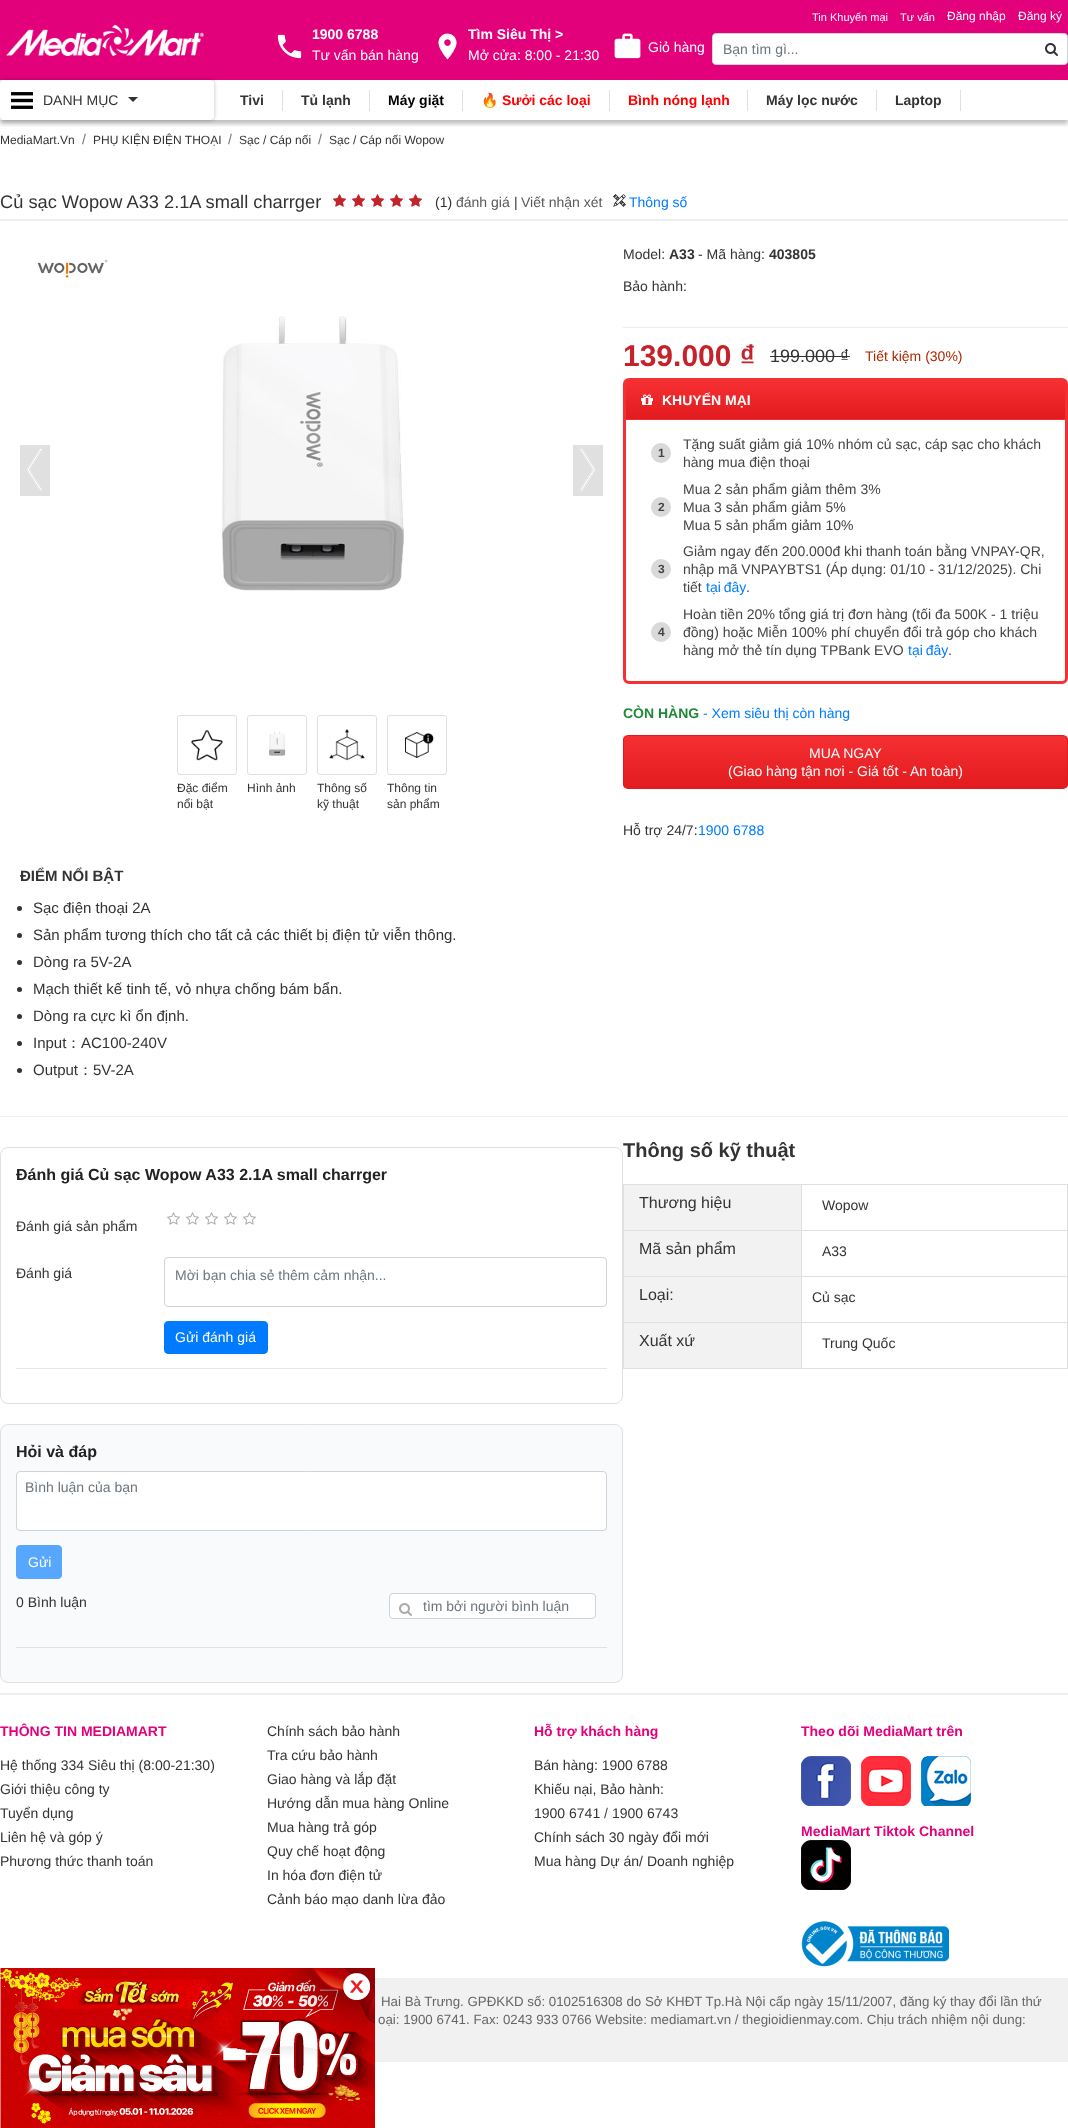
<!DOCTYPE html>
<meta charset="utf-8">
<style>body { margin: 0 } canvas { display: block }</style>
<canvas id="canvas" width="1068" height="2128"></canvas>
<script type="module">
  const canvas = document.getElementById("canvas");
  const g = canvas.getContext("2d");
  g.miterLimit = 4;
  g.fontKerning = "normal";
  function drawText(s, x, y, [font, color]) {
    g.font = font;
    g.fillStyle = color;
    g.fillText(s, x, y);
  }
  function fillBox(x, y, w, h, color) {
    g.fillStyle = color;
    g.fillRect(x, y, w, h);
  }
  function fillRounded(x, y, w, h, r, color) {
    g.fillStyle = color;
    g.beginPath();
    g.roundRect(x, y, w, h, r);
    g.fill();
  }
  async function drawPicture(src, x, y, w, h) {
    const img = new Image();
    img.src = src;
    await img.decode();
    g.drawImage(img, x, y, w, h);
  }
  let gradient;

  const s1 = ["bold 14px Liberation Sans", "#FFFFFF"];
  const s2 = ["14px Liberation Sans", "#FFFFFF"];
  const s3 = ["11px Liberation Sans", "#FFFFFF"];
  const s4 = ["12px Liberation Sans", "#FFFFFF"];
  const s5 = ["14px Liberation Sans", "#6C757D"];
  const s6 = ["14px Liberation Sans", "#333333"];
  const s7 = ["bold 14px Liberation Sans", "#333333"];
  const s8 = ["bold 14px Liberation Sans", "#000000"];
  const s9 = ["bold 14px Noto Color Emoji", "#FF0000"];
  const s10 = ["bold 14px Liberation Sans", "#FF0000"];
  const s11 = ["12px Liberation Sans", "#333333"];
  const s12 = ["18.25px Liberation Sans", "#333333"];
  const s13 = ["14px Liberation Sans", "#59595B"];
  const s14 = ["14px Liberation Sans", "#007BFF"];
  const s15 = ["bold 30px Liberation Sans", "#C5232B"];
  const s16 = ["18px Liberation Sans", "#333333"];
  const s17 = ["14px Liberation Sans", "#B12704"];
  const s18 = ["bold 12px Liberation Sans", "#444444"];
  const s19 = ["14px Liberation Sans", "#444444"];
  const s20 = ["bold 14px Liberation Sans", "#218838"];
  const s21 = ["bold 15px Liberation Sans", "#333333"];
  const s22 = ["15px Liberation Sans", "#333333"];
  const s23 = ["500 15px WenQuanYi Zen Hei", "#333333"];
  const s24 = ["bold 16px Liberation Sans", "#222222"];
  const s25 = ["bold 20px Liberation Sans", "#333333"];
  const s26 = ["16px Liberation Sans", "#333333"];
  const s27 = ["bold 14px Liberation Sans", "#E3007B"];
  const s28 = ["13.3px Liberation Sans", "#666666"];

  fillBox(0, 0, 1068, 2128, "#FFFFFF");
  g.save();
  g.beginPath();
  g.rect(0, 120, 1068, 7);
  g.clip();
  g.fillStyle = "rgba(0, 0, 0, 0.25)";
  g.filter = "blur(2px)";
  g.beginPath();
  g.rect(0, 84, 1068, 40);
  g.fill();
  g.filter = "none";
  g.restore();
  fillBox(0, 0, 1068, 80, "#E3007B");
  await drawPicture("pic1.png", 6, 24, 198, 32);
  await drawPicture("pic2.png", 277, 34, 25, 25);
  drawText("1900 6788", 312, 39, s1);
  drawText("Tư vấn bán hàng", 312, 60, s2);
  await drawPicture("pic3.png", 438, 33, 19, 27);
  drawText("Tìm Siêu Thị >", 468, 39, s1);
  drawText("Mở cửa: 8:00 - 21:30", 468, 60, s2);
  await drawPicture("pic4.png", 614, 33, 27, 26);
  drawText("Giỏ hàng", 648, 52, s2);
  drawText("Tin Khuyến mại", 812, 21, s3);
  drawText("Tư vấn", 900, 21, s3);
  drawText("Đăng nhập", 947, 20, s4);
  drawText("Đăng ký", 1018, 20, s4);
  g.beginPath();
  g.roundRect(712.5, 33.5, 355, 31, 3.5);
  g.fill();
  g.strokeStyle = "#CED4DA";
  g.stroke();
  drawText("Bạn tìm gì...", 723, 54, s5);
  await drawPicture("pic5.png", 1045, 43, 13, 13);
  g.save();
  g.beginPath();
  g.moveTo(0, 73);
  g.lineTo(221, 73);
  g.lineTo(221, 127);
  g.lineTo(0, 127);
  g.closePath();
  g.moveTo(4, 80);
  g.lineTo(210, 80);
  g.bezierCurveTo(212, 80, 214, 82, 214, 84);
  g.lineTo(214, 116);
  g.bezierCurveTo(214, 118, 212, 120, 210, 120);
  g.lineTo(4, 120);
  g.bezierCurveTo(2, 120, 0, 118, 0, 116);
  g.lineTo(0, 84);
  g.bezierCurveTo(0, 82, 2, 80, 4, 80);
  g.closePath();
  g.clip("evenodd");
  g.fillStyle = "rgba(0, 0, 0, 0.25)";
  g.filter = "blur(2px)";
  g.beginPath();
  g.roundRect(0, 80, 214, 40, 4);
  g.fill();
  g.filter = "none";
  g.restore();
  await drawPicture("pic6.png", 11, 92, 22, 17);
  drawText("DANH MỤC", 43, 105, s6);
  g.beginPath();
  g.moveTo(128, 97);
  g.lineTo(138, 97);
  g.lineTo(133, 102);
  g.closePath();
  g.fill();
  fillBox(282, 90, 1, 21, "#E0E0E0");
  drawText("Tivi", 240, 105, s7);
  fillBox(369, 90, 1, 21, "#E0E0E0");
  drawText("Tủ lạnh", 301, 105, s7);
  fillBox(462, 90, 1, 21, "#E0E0E0");
  drawText("Máy giặt", 388, 105, s8);
  fillBox(609, 90, 1, 21, "#E0E0E0");
  drawText("🔥", 481, 105, s9);
  drawText("Sưởi các loại", 502, 105, s10);
  fillBox(747, 90, 1, 21, "#E0E0E0");
  drawText("Bình nóng lạnh", 628, 105, s10);
  fillBox(876, 90, 1, 21, "#E0E0E0");
  drawText("Máy lọc nước", 766, 105, s7);
  fillBox(960, 90, 1, 21, "#E0E0E0");
  drawText("Laptop", 895, 105, s7);
  drawText("MediaMart.Vn", 0, 144, s11);
  drawText("/", 82, 144, s5);
  drawText("PHỤ KIỆN ĐIỆN THOẠI", 93, 144, s11);
  drawText("/", 228, 144, s5);
  drawText("Sạc / Cáp nối", 239, 144, s11);
  drawText("/", 318, 144, s5);
  drawText("Sạc / Cáp nối Wopow", 329, 144, s11);
  fillBox(0, 219, 1068, 2, "#EEEEEE");
  drawText("Củ sạc Wopow A33 2.1A small charrger", 0, 208, s12);
  await drawPicture("pic7.png", 333, 194, 13, 13);
  await drawPicture("pic7.png", 352, 194, 13, 13);
  await drawPicture("pic7.png", 371, 194, 13, 13);
  await drawPicture("pic7.png", 390, 194, 13, 13);
  await drawPicture("pic7.png", 409, 194, 13, 13);
  await drawPicture("pic8.png", 333, 194, 13, 13);
  await drawPicture("pic8.png", 352, 194, 13, 13);
  await drawPicture("pic8.png", 371, 194, 13, 13);
  await drawPicture("pic8.png", 390, 194, 13, 13);
  await drawPicture("pic8.png", 409, 194, 13, 13);
  drawText("(1)", 435, 207, s6);
  drawText("đánh giá", 456, 207, s13);
  drawText("|", 514, 207, s6);
  drawText("Viết nhận xét", 521, 207, s13);
  await drawPicture("pic9.png", 613, 194, 13, 13);
  drawText("Thông số", 629, 207, s14);
  drawText("Model:", 623, 259, s6);
  drawText("A33", 669, 259, s7);
  drawText("- Mã hàng:", 698, 259, s6);
  drawText("403805", 769, 259, s7);
  drawText("Bảo hành:", 623, 291, s6);
  fillBox(623, 327, 445, 1, "#EDEDED");
  drawText("139.000 ₫", 623, 366, s15);
  drawText("199.000 ₫", 770, 362, s16);
  fillBox(770, 356, 80, 1, "#333333");
  drawText("Tiết kiệm (30%)", 865, 361, s17);
  g.beginPath();
  g.roundRect(624.5, 379.5, 442, 303, 4.5);
  g.strokeStyle = "#F52F32";
  g.lineWidth = 3;
  g.stroke();
  gradient = g.createLinearGradient(846, 381, 846, 419);
  gradient.addColorStop(0, "#F52F32");
  gradient.addColorStop(1, "#E11B1E");
  g.fillStyle = gradient;
  g.fillRect(626, 381, 439, 38);
  gradient = g.createLinearGradient(846, 419, 846, 457);
  gradient.addColorStop(0, "#F52F32");
  gradient.addColorStop(1, "#E11B1E");
  g.fillStyle = gradient;
  g.fillRect(626, 419, 439, 1);
  await drawPicture("pic10.png", 641, 394, 12, 11);
  drawText("KHUYẾN MẠI", 662, 405, s1);
  g.fillStyle = "#D9D9D9";
  g.beginPath();
  g.arc(661, 453, 10, 0, Math.PI * 2);
  g.fill();
  drawText("1", 658, 457, s18);
  drawText("Tặng suất giảm giá 10% nhóm củ sạc, cáp sạc cho khách", 683, 449, s19);
  drawText("hàng mua điện thoại", 683, 467, s19);
  drawText("Mua 2 sản phẩm giảm thêm 3%", 683, 494, s19);
  g.fillStyle = "#D9D9D9";
  g.beginPath();
  g.arc(661, 507, 10, 0, Math.PI * 2);
  g.fill();
  drawText("2", 658, 511, s18);
  drawText("Mua 3 sản phẩm giảm 5%", 683, 512, s19);
  drawText("Mua 5 sản phẩm giảm 10%", 683, 530, s19);
  drawText("Giảm ngay đến 200.000đ khi thanh toán bằng VNPAY-QR,", 683, 556, s19);
  g.fillStyle = "#D9D9D9";
  g.beginPath();
  g.arc(661, 569, 10, 0, Math.PI * 2);
  g.fill();
  drawText("3", 658, 573, s18);
  drawText("nhập mã VNPAYBTS1 (Áp dụng: 01/10 - 31/12/2025). Chi", 683, 574, s19);
  drawText("tiết", 683, 592, s19);
  g.wordSpacing = "-1px";
  drawText("tại đây", 706, 592, s14);
  g.wordSpacing = "0px";
  drawText(".", 746, 592, s19);
  drawText("Hoàn tiền 20% tổng giá trị đơn hàng (tối đa 500K - 1 triệu", 683, 619, s19);
  g.fillStyle = "#D9D9D9";
  g.beginPath();
  g.arc(661, 632, 10, 0, Math.PI * 2);
  g.fill();
  drawText("4", 658, 636, s18);
  drawText("đồng) hoặc Miễn 100% phí chuyển đổi trả góp cho khách", 683, 637, s19);
  drawText("hàng mở thẻ tín dụng TPBank EVO", 683, 655, s19);
  g.wordSpacing = "-1px";
  drawText("tại đây", 908, 655, s14);
  g.wordSpacing = "0px";
  drawText(".", 948, 655, s19);
  drawText("CÒN HÀNG", 623, 718, s20);
  drawText("- Xem siêu thị còn hàng", 703, 718, s14);
  g.save();
  g.beginPath();
  g.roundRect(623, 735, 445, 54, 5);
  g.clip();
  gradient = g.createLinearGradient(846, 736, 846, 788);
  gradient.addColorStop(0, "#F52F32");
  gradient.addColorStop(1, "#E11B1E");
  g.fillStyle = gradient;
  g.fillRect(623, 736, 445, 52);
  g.restore();
  g.beginPath();
  g.roundRect(623.5, 735.5, 444, 53, 4.5);
  g.strokeStyle = "#E11B1E";
  g.lineWidth = 1;
  g.stroke();
  drawText("MUA NGAY", 809, 758, s2);
  drawText("(Giao hàng tận nơi - Giá tốt - An toàn)", 728, 776, s2);
  drawText("Hỗ trợ 24/7:", 623, 835, s6);
  drawText("1900 6788", 698, 835, s14);
  await drawPicture("pic11.png", 37, 259, 71, 19);
  await drawPicture("pic12.png", 222, 316, 182, 275);
  await drawPicture("pic13.png", 20, 445, 30, 51);
  await drawPicture("pic14.png", 573, 445, 30, 51);
  g.beginPath();
  g.roundRect(177.5, 715.5, 59, 59, 2.5);
  g.strokeStyle = "#E0E0E0";
  g.stroke();
  await drawPicture("pic15.png", 191, 729, 32, 32);
  drawText("Đặc điểm", 177, 792, s11);
  drawText("nổi bật", 177, 808, s11);
  g.beginPath();
  g.roundRect(247.5, 715.5, 59, 59, 2.5);
  g.stroke();
  await drawPicture("pic16.png", 269, 731, 17, 25);
  drawText("Hình ảnh", 247, 792, s11);
  g.beginPath();
  g.roundRect(317.5, 715.5, 59, 59, 2.5);
  g.stroke();
  await drawPicture("pic17.png", 329, 729, 36, 32);
  drawText("Thông số", 317, 792, s11);
  drawText("kỹ thuật", 317, 808, s11);
  g.beginPath();
  g.roundRect(387.5, 715.5, 59, 59, 2.5);
  g.stroke();
  await drawPicture("pic18.png", 405, 732, 29, 26);
  drawText("Thông tin", 387, 792, s11);
  drawText("sản phẩm", 387, 808, s11);
  drawText("ĐIỂM NỔI BẬT", 20, 881, s21);
  g.beginPath();
  g.arc(19.5, 908.5, 2.5, 0, Math.PI * 2);
  g.fill();
  drawText("Sạc điện thoại 2A", 33, 913, s22);
  g.beginPath();
  g.arc(19.5, 935.5, 2.5, 0, Math.PI * 2);
  g.fill();
  drawText("Sản phẩm tương thích cho tất cả các thiết bị điện tử viễn thông.", 33, 940, s22);
  g.beginPath();
  g.arc(19.5, 962.5, 2.5, 0, Math.PI * 2);
  g.fill();
  drawText("Dòng ra 5V-2A", 33, 967, s22);
  g.beginPath();
  g.arc(19.5, 989.5, 2.5, 0, Math.PI * 2);
  g.fill();
  drawText("Mạch thiết kế tinh tế, vỏ nhựa chống bám bẩn.", 33, 994, s22);
  g.beginPath();
  g.arc(19.5, 1016.5, 2.5, 0, Math.PI * 2);
  g.fill();
  drawText("Dòng ra cực kì ổn định.", 33, 1021, s22);
  g.beginPath();
  g.arc(19.5, 1043.5, 2.5, 0, Math.PI * 2);
  g.fill();
  drawText("Input", 33, 1048, s22);
  drawText("：", 66, 1048, s23);
  drawText("AC100-240V", 81, 1048, s22);
  g.beginPath();
  g.arc(19.5, 1070.5, 2.5, 0, Math.PI * 2);
  g.fill();
  drawText("Output", 33, 1075, s22);
  drawText("：", 78, 1075, s23);
  drawText("5V-2A", 93, 1075, s22);
  fillBox(0, 1116, 1068, 1, "#F1F1F1");
  g.beginPath();
  g.roundRect(0.5, 1147.5, 622, 256, 7.5);
  g.stroke();
  drawText("Đánh giá Củ sạc Wopow A33 2.1A small charrger", 16, 1180, s24);
  drawText("Đánh giá sản phẩm", 16, 1231, s6);
  await drawPicture("pic7.png", 167, 1212, 13, 13);
  await drawPicture("pic7.png", 186, 1212, 13, 13);
  await drawPicture("pic7.png", 205, 1212, 13, 13);
  await drawPicture("pic7.png", 224, 1212, 13, 13);
  await drawPicture("pic7.png", 243, 1212, 13, 13);
  drawText("Đánh giá", 16, 1278, s6);
  g.beginPath();
  g.roundRect(164.5, 1257.5, 442, 49, 3.5);
  g.strokeStyle = "#CED4DA";
  g.stroke();
  drawText("Mời bạn chia sẻ thêm cảm nhận...", 175, 1280, s5);
  g.fillStyle = "#007BFF";
  g.beginPath();
  g.roundRect(164.5, 1321.5, 103, 32, 3.5);
  g.fill();
  g.strokeStyle = "#007BFF";
  g.stroke();
  drawText("Gửi đánh giá", 175, 1342, s2);
  fillBox(16, 1368, 591, 1, "#E6E6E6");
  g.fillStyle = "#F9FAFB";
  g.beginPath();
  g.roundRect(0.5, 1424.5, 622, 258, 7.5);
  g.fill();
  g.strokeStyle = "#E0E0E0";
  g.stroke();
  drawText("Hỏi và đáp", 16, 1457, s24);
  fillRounded(17, 1472, 589, 58, 2.5, "#FFFFFF");
  g.beginPath();
  g.roundRect(16.5, 1471.5, 590, 59, 3.5);
  g.strokeStyle = "#CED4DA";
  g.stroke();
  drawText("Bình luận của bạn", 25, 1492, s5);
  g.fillStyle = "#57A7FE";
  g.beginPath();
  g.roundRect(16.5, 1545.5, 45, 33, 3.5);
  g.fill();
  g.strokeStyle = "#57A7FE";
  g.stroke();
  drawText("Gửi", 28, 1567, s2);
  drawText("0 Bình luận", 16, 1607, s6);
  fillRounded(390, 1594, 205, 24, 2.5, "#FFFFFF");
  g.beginPath();
  g.roundRect(389.5, 1593.5, 206, 25, 3.5);
  g.strokeStyle = "#CED4DA";
  g.stroke();
  await drawPicture("pic19.png", 399, 1603, 13, 13);
  drawText("tìm bởi người bình luận", 423, 1611, s5);
  fillBox(16, 1647, 591, 1, "#E0E1E2");
  drawText("Thông số kỹ thuật", 623, 1157, s25);
  fillBox(624, 1185, 177, 45, "#F2F2F2");
  fillBox(801, 1184, 267, 1, "#E0E0E0");
  fillBox(801, 1230, 267, 1, "#E0E0E0");
  fillBox(801, 1276, 267, 1, "#E0E0E0");
  fillBox(801, 1322, 267, 1, "#E0E0E0");
  fillBox(1067, 1322, 1, 47, "#E0E0E0");
  fillBox(801, 1368, 267, 1, "#E0E0E0");
  fillBox(801, 1322, 1, 47, "#E0E0E0");
  fillBox(623, 1322, 179, 1, "#E0E0E0");
  fillBox(801, 1276, 1, 47, "#E0E0E0");
  fillBox(623, 1276, 179, 1, "#E0E0E0");
  fillBox(801, 1230, 1, 47, "#E0E0E0");
  fillBox(623, 1230, 179, 1, "#E0E0E0");
  fillBox(801, 1184, 1, 47, "#E0E0E0");
  fillBox(623, 1184, 179, 1, "#E0E0E0");
  fillBox(623, 1368, 179, 1, "#E0E0E0");
  fillBox(623, 1322, 1, 47, "#E0E0E0");
  fillBox(623, 1276, 1, 47, "#E0E0E0");
  fillBox(623, 1230, 1, 47, "#E0E0E0");
  fillBox(623, 1184, 1, 47, "#E0E0E0");
  drawText("Thương hiệu", 639, 1208, s26);
  fillBox(1067, 1276, 1, 47, "#E0E0E0");
  fillBox(1067, 1230, 1, 47, "#E0E0E0");
  fillBox(1067, 1184, 1, 47, "#E0E0E0");
  drawText("Wopow", 822, 1210, s6);
  fillBox(624, 1231, 177, 45, "#F2F2F2");
  drawText("Mã sản phẩm", 639, 1254, s26);
  drawText("A33", 822, 1256, s6);
  fillBox(624, 1277, 177, 45, "#F2F2F2");
  drawText("Loại:", 639, 1300, s26);
  drawText("Củ sạc", 812, 1302, s6);
  fillBox(624, 1323, 177, 45, "#F2F2F2");
  drawText("Xuất xứ", 639, 1346, s26);
  drawText("Trung Quốc", 822, 1348, s6);
  fillBox(0, 1693, 1068, 2, "#EEEEEE");
  drawText("THÔNG TIN MEDIAMART", 0, 1736, s27);
  drawText("Hệ thống 334 Siêu thị (8:00-21:30)", 0, 1770, s6);
  drawText("Giới thiệu công ty", 0, 1794, s6);
  drawText("Tuyển dụng", 0, 1818, s6);
  drawText("Liên hệ và góp ý", 0, 1842, s6);
  drawText("Phương thức thanh toán", 0, 1866, s6);
  drawText("Chính sách bảo hành", 267, 1736, s6);
  drawText("Tra cứu bảo hành", 267, 1760, s6);
  drawText("Giao hàng và lắp đặt", 267, 1784, s6);
  drawText("Hướng dẫn mua hàng Online", 267, 1808, s6);
  drawText("Mua hàng trả góp", 267, 1832, s6);
  drawText("Quy chế hoạt động", 267, 1856, s6);
  drawText("In hóa đơn điện tử", 267, 1880, s6);
  drawText("Cảnh báo mạo danh lừa đảo", 267, 1904, s6);
  drawText("Hỗ trợ khách hàng", 534, 1736, s27);
  drawText("Bán hàng: 1900 6788", 534, 1770, s6);
  drawText("Khiếu nại, Bảo hành:", 534, 1794, s6);
  drawText("1900 6741", 534, 1818, s6);
  drawText("/", 604, 1818, s19);
  drawText("1900 6743", 612, 1818, s6);
  drawText("Chính sách 30 ngày đổi mới", 534, 1842, s6);
  drawText("Mua hàng Dự án/ Doanh nghiệp", 534, 1866, s6);
  drawText("Theo dõi MediaMart trên", 801, 1736, s27);
  await drawPicture("pic20.png", 801, 1756, 50, 50);
  await drawPicture("pic21.png", 861, 1756, 50, 50);
  await drawPicture("pic22.png", 921, 1756, 50, 50);
  drawText("MediaMart Tiktok Channel", 801, 1836, s27);
  await drawPicture("pic23.png", 801, 1840, 50, 50);
  await drawPicture("pic24.png", 801, 1921, 148, 46);
  await drawPicture("pic25.png", 0, 1968, 375, 160);
  await drawPicture("pic26.png", 343, 1973, 27, 27);
  fillBox(375, 1978, 693, 84, "#F1F1F1");
  drawText("Hai Bà Trưng. GPĐKKD số: 0102516308 do Sở KHĐT Tp.Hà Nội cấp ngày 15/11/2007, đăng ký thay đổi lần thứ", 381, 2006, s28);
  drawText("oại: 1900 6741. Fax: 0243 933 0766 Website: mediamart.vn / thegioidienmay.com. Chịu trách nhiệm nội dung:", 378, 2024, s28);
</script>
